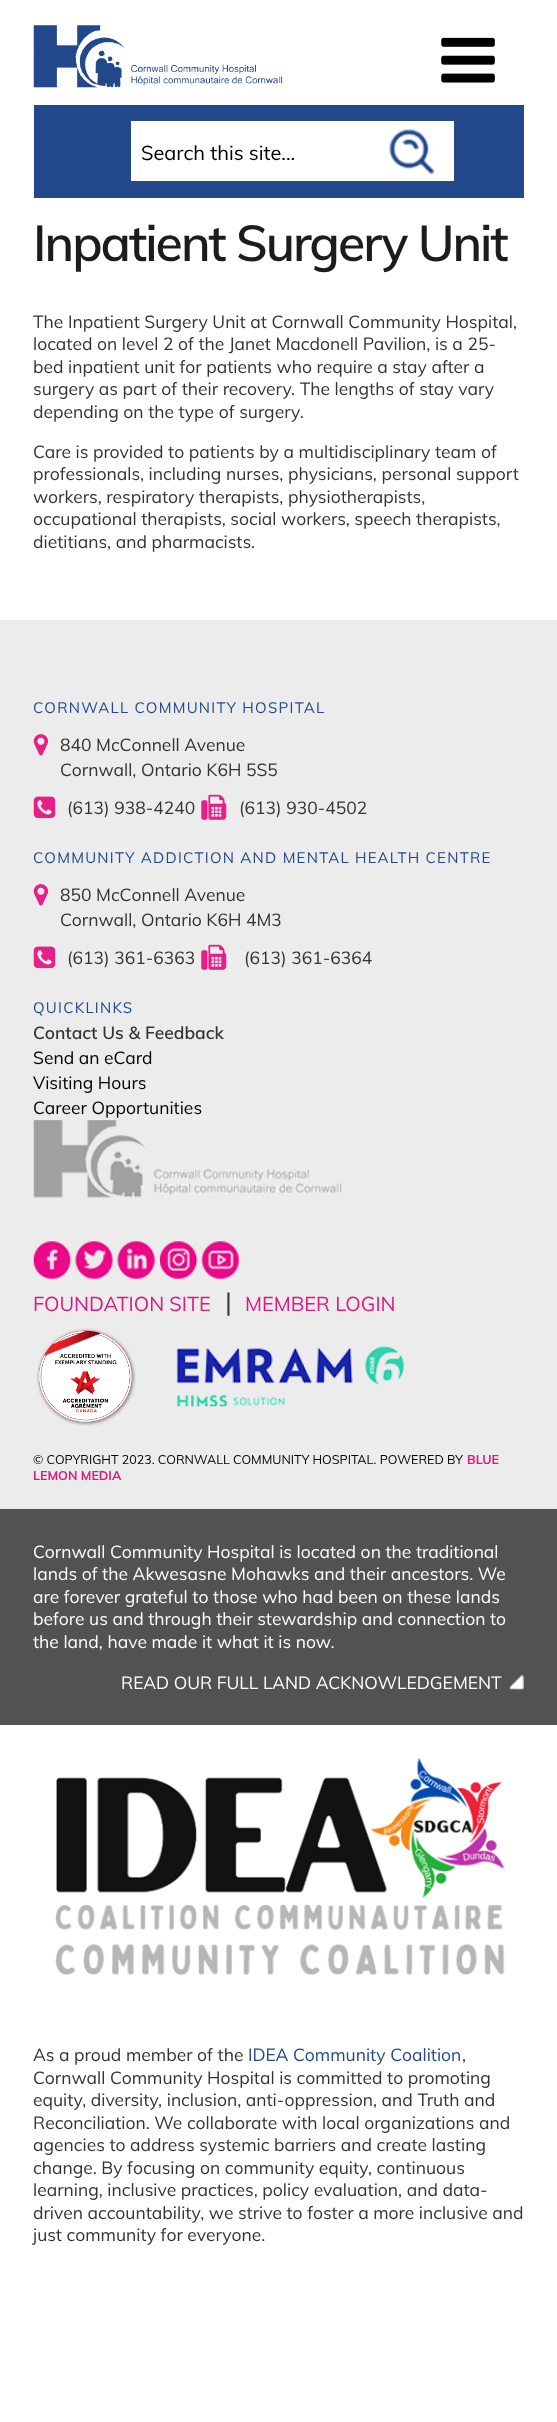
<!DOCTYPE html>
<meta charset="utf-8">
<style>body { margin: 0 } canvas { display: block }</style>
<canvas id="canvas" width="557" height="2422"></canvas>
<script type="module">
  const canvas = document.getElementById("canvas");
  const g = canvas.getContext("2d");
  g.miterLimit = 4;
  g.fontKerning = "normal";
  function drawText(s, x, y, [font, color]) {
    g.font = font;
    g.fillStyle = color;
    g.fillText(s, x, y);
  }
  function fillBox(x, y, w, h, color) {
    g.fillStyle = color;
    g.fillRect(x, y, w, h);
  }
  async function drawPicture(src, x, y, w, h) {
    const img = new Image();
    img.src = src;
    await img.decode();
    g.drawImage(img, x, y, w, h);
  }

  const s1 = ["20px Muli", "#000000"];
  const s2 = ["600 50px Muli", "#1C1C1C"];
  const s3 = ["17.5px Muli", "#333333"];
  const s4 = ["15px Muli", "#23498C"];
  const s5 = ["600 17.5px Muli", "#333333"];
  const s6 = ["17.5px Muli", "#000000"];
  const s7 = ["20px Muli", "#DE1781"];
  const s8 = ["26px Muli", "#333333"];
  const s9 = ["12.5px Muli", "#000000"];
  const s10 = ["bold 12.5px Muli", "#DE1781"];
  const s11 = ["17.5px Muli", "#FFFFFF"];
  const s12 = ["17.5px Muli", "#23498C"];

  fillBox(0, 0, 557, 2422, "#FFFFFF");
  await drawPicture("pic1.png", 441, 37, 54, 46);
  await drawPicture("pic2.png", 33, 25, 249, 63);
  fillBox(34, 105, 490, 93, "#23498C");
  fillBox(131, 121, 323, 60, "#FFFFFF");
  await drawPicture("pic3.png", 388, 128, 47, 47);
  drawText("Search this site...", 141, 160, s1);
  g.letterSpacing = "-2px";
  drawText("Inpatient Surgery Unit", 33, 261, s2);
  g.letterSpacing = "0px";
  drawText("The Inpatient Surgery Unit at Cornwall Community Hospital,", 33, 328, s3);
  drawText("located on level 2 of the Janet Macdonell Pavilion, is a 25-", 33, 350, s3);
  drawText("bed inpatient unit for patients who require a stay after a", 33, 373, s3);
  drawText("surgery as part of their recovery. The lengths of stay vary", 33, 395, s3);
  drawText("depending on the type of surgery.", 33, 418, s3);
  drawText("Care is provided to patients by a multidisciplinary team of", 33, 458, s3);
  drawText("professionals, including nurses, physicians, personal support", 33, 480, s3);
  drawText("workers, respiratory therapists, physiotherapists,", 33, 503, s3);
  drawText("occupational therapists, social workers, speech therapists,", 33, 525, s3);
  drawText("dietitians, and pharmacists.", 33, 548, s3);
  fillBox(0, 620, 557, 889, "#ECECEC");
  g.letterSpacing = "1.25px";
  drawText("CORNWALL COMMUNITY HOSPITAL", 33, 713, s4);
  await drawPicture("pic4.png", 33, 734, 15, 22);
  g.letterSpacing = "0px";
  drawText("840 McConnell Avenue", 60, 751, s3);
  drawText("Cornwall, Ontario K6H 5S5", 60, 776, s3);
  await drawPicture("pic5.png", 33, 796, 23, 23);
  drawText("(613) 938-4240", 67, 814, s3);
  await drawPicture("pic6.png", 201, 794, 26, 26);
  drawText("(613) 930-4502", 239, 814, s3);
  g.letterSpacing = "1.25px";
  drawText("COMMUNITY ADDICTION AND MENTAL HEALTH CENTRE", 33, 863, s4);
  await drawPicture("pic4.png", 33, 884, 15, 22);
  g.letterSpacing = "0px";
  drawText("850 McConnell Avenue", 60, 901, s3);
  drawText("Cornwall, Ontario K6H 4M3", 60, 926, s3);
  await drawPicture("pic5.png", 33, 946, 23, 23);
  drawText("(613) 361-6363", 67, 964, s3);
  await drawPicture("pic6.png", 201, 944, 26, 26);
  drawText("(613) 361-6364", 244, 964, s3);
  g.letterSpacing = "1.25px";
  drawText("QUICKLINKS", 33, 1013, s4);
  g.letterSpacing = "0px";
  drawText("Contact Us & Feedback", 33, 1039, s5);
  drawText("Send an eCard", 33, 1064, s6);
  drawText("Visiting Hours", 33, 1089, s6);
  drawText("Career Opportunities", 33, 1114, s6);
  await drawPicture("pic7.png", 33, 1120, 309, 78);
  await drawPicture("pic8.png", 33, 1241, 39, 38);
  await drawPicture("pic9.png", 75, 1241, 38, 38);
  await drawPicture("pic10.png", 117, 1241, 38, 38);
  await drawPicture("pic11.png", 160, 1241, 38, 38);
  await drawPicture("pic12.png", 201, 1241, 38, 38);
  drawText("FOUNDATION SITE", 33, 1311, s7);
  drawText("|", 225, 1311, s8);
  drawText("MEMBER LOGIN", 245, 1311, s7);
  await drawPicture("pic13.png", 36, 1328, 100, 98);
  await drawPicture("pic14.png", 176, 1346, 229, 61);
  drawText("© COPYRIGHT 2023. CORNWALL COMMUNITY HOSPITAL. POWERED BY", 33, 1464, s9);
  drawText("BLUE", 467, 1464, s10);
  drawText("LEMON MEDIA", 33, 1480, s10);
  fillBox(0, 1509, 557, 216, "#525252");
  drawText("Cornwall Community Hospital is located on the traditional", 33, 1558, s11);
  drawText("lands of the Akwesasne Mohawks and their ancestors. We", 33, 1580, s11);
  drawText("are forever grateful to those who had been on these lands", 33, 1603, s11);
  drawText("before us and through their stewardship and connection to", 33, 1625, s11);
  drawText("the land, have made it what it is now.", 33, 1648, s11);
  await drawPicture("pic15.png", 509, 1675, 15, 15);
  drawText("READ OUR FULL LAND ACKNOWLEDGEMENT", 121, 1689, s11);
  await drawPicture("pic16.png", 55, 1757, 450, 219);
  drawText("As a proud member of the", 33, 2061, s3);
  drawText("IDEA Community Coalition", 248, 2061, s12);
  drawText(",", 462, 2061, s3);
  drawText("Cornwall Community Hospital is committed to promoting", 33, 2084, s3);
  drawText("equity, diversity, inclusion, anti-oppression, and Truth and", 33, 2106, s3);
  drawText("Reconciliation. We collaborate with local organizations and", 33, 2129, s3);
  drawText("agencies to address systemic barriers and create lasting", 33, 2151, s3);
  drawText("change. By focusing on community equity, continuous", 33, 2174, s3);
  drawText("learning, inclusive practices, policy evaluation, and data-", 33, 2196, s3);
  drawText("driven accountability, we strive to foster a more inclusive and", 33, 2219, s3);
  drawText("just community for everyone.", 33, 2241, s3);
</script>
